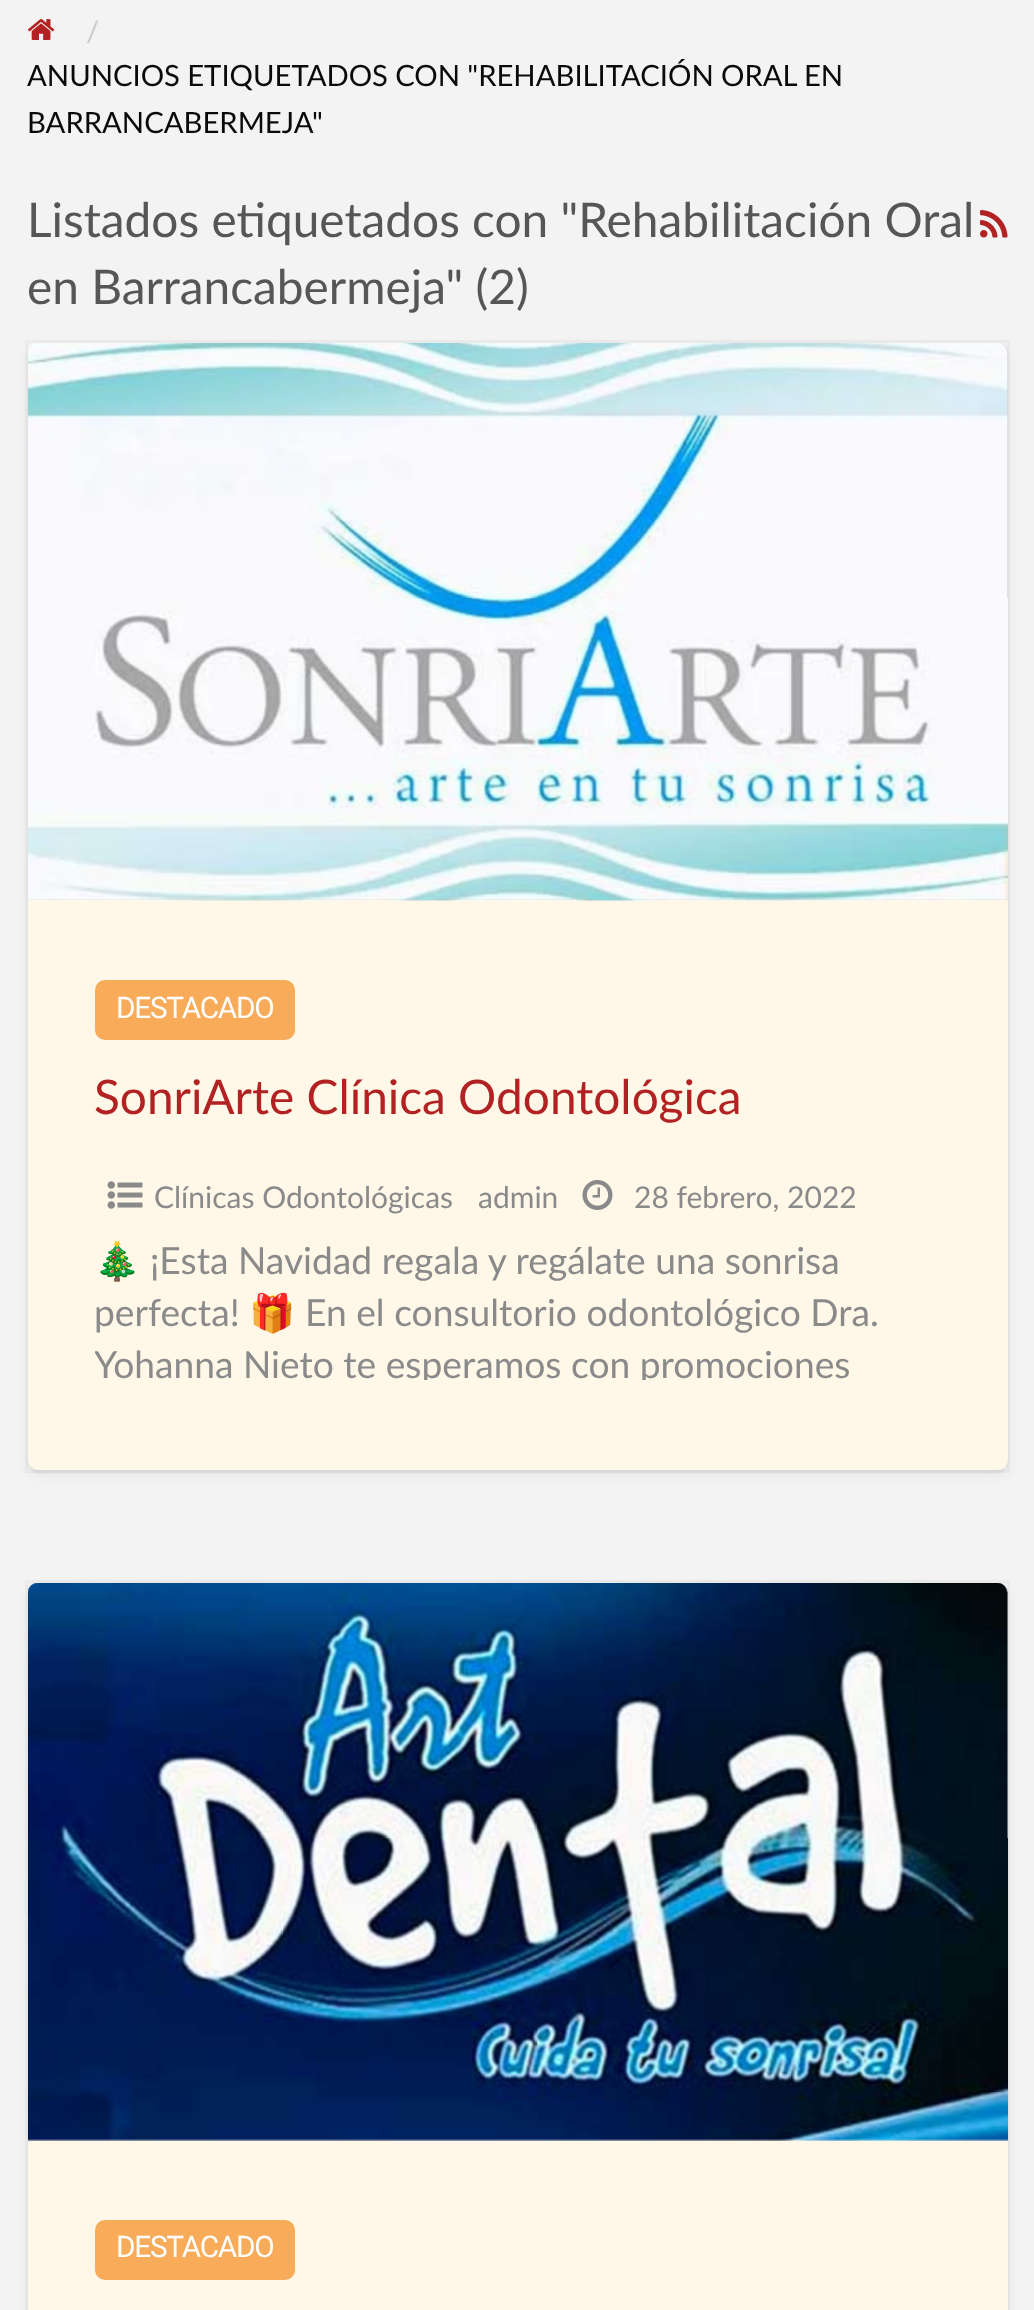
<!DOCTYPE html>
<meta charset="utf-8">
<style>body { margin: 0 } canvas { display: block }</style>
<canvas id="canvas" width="1034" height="2310"></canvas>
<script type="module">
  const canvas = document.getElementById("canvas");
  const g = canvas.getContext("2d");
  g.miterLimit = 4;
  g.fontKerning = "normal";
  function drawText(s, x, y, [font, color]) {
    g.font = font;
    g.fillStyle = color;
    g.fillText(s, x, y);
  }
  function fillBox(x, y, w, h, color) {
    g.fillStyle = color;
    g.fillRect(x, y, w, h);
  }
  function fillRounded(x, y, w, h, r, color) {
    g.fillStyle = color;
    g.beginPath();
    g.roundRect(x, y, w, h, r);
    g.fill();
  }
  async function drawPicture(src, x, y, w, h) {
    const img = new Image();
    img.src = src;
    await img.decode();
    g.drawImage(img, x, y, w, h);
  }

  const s1 = ["29.25px Lato", "#CACACA"];
  const s2 = ["29.25px Lato", "#0A0A0A"];
  const s3 = ["47.8px Lato", "#565656"];
  const s4 = ["29.75px Roboto", "#FEFEFE"];
  const s5 = ["47.8px Lato", "#B22222"];
  const s6 = ["30px Lato", "#8A8A8A"];
  const s7 = ["37.2px Noto Color Emoji", "#8A8A8A"];
  const s8 = ["37.2px Lato", "#8A8A8A"];

  fillBox(0, 0, 1034, 2310, "#F3F3F4");
  await drawPicture("pic1.png", 28, 19, 27, 21);
  drawText("/", 86, 42, s1);
  g.wordSpacing = "-0.25px";
  drawText("ANUNCIOS ETIQUETADOS CON \"REHABILITACIÓN ORAL EN", 27, 86, s2);
  g.wordSpacing = "0px";
  drawText("BARRANCABERMEJA\"", 27, 133, s2);
  drawText("Listados etiquetados con \"Rehabilitación Oral", 27, 237, s3);
  drawText("en Barrancabermeja\" (2)", 27, 304, s3);
  await drawPicture("pic2.png", 980, 210, 28, 28);
  g.fillStyle = "rgba(0, 0, 0, 0.05)";
  g.filter = "blur(6px)";
  g.beginPath();
  g.roundRect(28, 348, 980, 1127, 10);
  g.fill();
  g.filter = "none";
  g.filter = "blur(1px)";
  g.beginPath();
  g.roundRect(28, 345, 980, 1128, 10);
  g.fill();
  g.filter = "none";
  g.strokeStyle = "rgba(0, 0, 0, 0.03)";
  g.lineWidth = 3;
  g.strokeRect(26.5, 341.5, 982, 1130);
  fillRounded(28, 343, 980, 1127, 10, "#FFF7E7");
  g.fillStyle = "#CCCCCC";
  g.beginPath();
  g.roundRect(28, 343, 980, 557, [10, 10, 0, 0]);
  g.fill();
  await drawPicture("pic3.png", 28, 343, 980, 558);
  fillRounded(95, 980, 200, 60, 10, "#F8AC59");
  g.letterSpacing = "-1.25px";
  drawText("DESTACADO", 116, 1018, s4);
  g.letterSpacing = "0px";
  drawText("SonriArte Clínica Odontológica", 94, 1114, s5);
  await drawPicture("pic4.png", 107, 1181, 36, 28);
  drawText("Clínicas Odontológicas", 154, 1208, s6);
  drawText("admin", 478, 1208, s6);
  await drawPicture("pic5.png", 582, 1180, 31, 30);
  drawText("28 febrero, 2022", 634, 1208, s6);
  g.save();
  g.beginPath();
  g.rect(95, 1235, 845, 145);
  g.clip();
  drawText("🎄", 94, 1274, s7);
  g.restore();
  drawText("¡Esta Navidad regala y regálate una sonrisa", 150, 1274, s8);
  drawText("perfecta!", 94, 1326, s8);
  drawText("🎁", 249, 1326, s7);
  drawText("En el consultorio odontológico Dra.", 305, 1326, s8);
  g.save();
  g.beginPath();
  g.rect(95, 1235, 845, 145);
  g.clip();
  drawText("Yohanna Nieto te esperamos con promociones", 94, 1378, s8);
  g.restore();
  g.fillStyle = "rgba(0, 0, 0, 0.05)";
  g.filter = "blur(6px)";
  g.beginPath();
  g.roundRect(28, 1588, 980, 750, 10);
  g.fill();
  g.filter = "none";
  g.strokeRect(26.5, 1581.5, 982, 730);
  fillRounded(28, 1583, 980, 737, 10, "#FFF7E7");
  g.fillStyle = "#CCCCCC";
  g.beginPath();
  g.roundRect(28, 1583, 980, 557, [10, 10, 0, 0]);
  g.fill();
  await drawPicture("pic6.png", 28, 1583, 980, 558);
  fillRounded(95, 2220, 200, 60, 10, "#F8AC59");
  g.letterSpacing = "-1.25px";
  drawText("DESTACADO", 116, 2257, s4);
</script>
